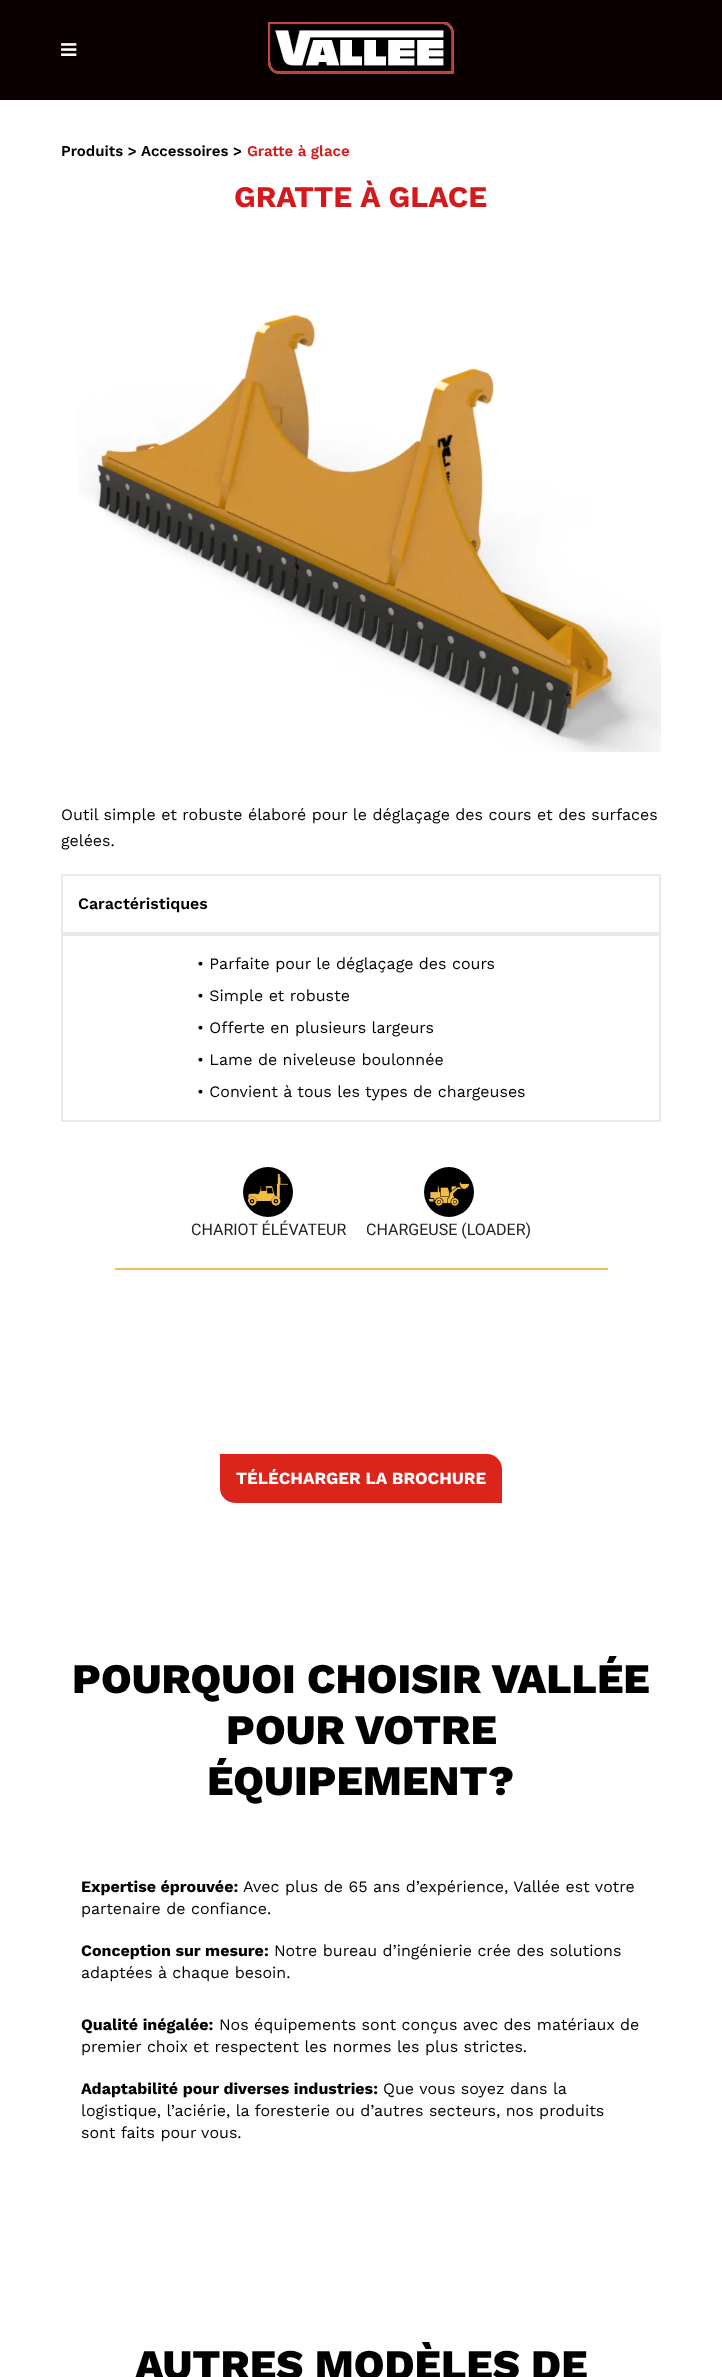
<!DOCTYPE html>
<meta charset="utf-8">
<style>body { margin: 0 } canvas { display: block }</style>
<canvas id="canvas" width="722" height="2377"></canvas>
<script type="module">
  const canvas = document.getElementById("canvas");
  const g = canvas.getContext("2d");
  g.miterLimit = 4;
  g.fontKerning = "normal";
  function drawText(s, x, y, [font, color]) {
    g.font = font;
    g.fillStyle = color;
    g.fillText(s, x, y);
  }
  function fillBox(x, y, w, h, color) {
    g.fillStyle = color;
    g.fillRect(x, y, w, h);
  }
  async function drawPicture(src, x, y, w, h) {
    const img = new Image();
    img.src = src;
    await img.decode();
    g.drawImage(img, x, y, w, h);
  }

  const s1 = ["600 15px Work Sans", "#000000"];
  const s2 = ["600 15px Work Sans", "#D6181B"];
  const s3 = ["bold 30px Work Sans", "#D6181B"];
  const s4 = ["16px Work Sans", "#000000"];
  const s5 = ["600 16px Work Sans", "#000000"];
  const s6 = ["16px Roboto", "#222222"];
  const s7 = ["bold 17px Work Sans", "#FFFFFF"];
  const s8 = ["800 42px Work Sans", "#000000"];
  const s9 = ["bold 16px Work Sans", "#000000"];

  fillBox(0, 0, 722, 2377, "#FFFFFF");
  fillBox(0, 0, 722, 100, "#0A0000");
  await drawPicture("pic1.png", 61, 43, 16, 13);
  await drawPicture("pic2.png", 266, 20, 190, 56);
  drawText("Produits >", 61, 156, s1);
  drawText("Accessoires >", 141, 156, s1);
  drawText("Gratte à glace", 247, 156, s2);
  drawText("GRATTE À GLACE", 234, 207, s3);
  await drawPicture("pic3.png", 78, 314, 583, 438);
  drawText("Outil simple et robuste élaboré pour le déglaçage des cours et des surfaces", 61, 820, s4);
  drawText("gelées.", 61, 846, s4);
  g.strokeStyle = "#EAE9E9";
  g.lineWidth = 2;
  g.strokeRect(62, 875, 598, 58);
  drawText("Caractéristiques", 78, 909, s5);
  g.strokeRect(62, 935, 598, 186);
  drawText("• Parfaite pour le déglaçage des cours", 197, 969, s4);
  drawText("• Simple et robuste", 197, 1001, s4);
  drawText("• Offerte en plusieurs largeurs", 197, 1033, s4);
  drawText("• Lame de niveleuse boulonnée", 197, 1065, s4);
  drawText("• Convient à tous les types de chargeuses", 197, 1097, s4);
  g.beginPath();
  g.arc(268, 1192, 25, 0, Math.PI * 2);
  g.fill();
  await drawPicture("pic4.png", 247, 1174, 42, 32);
  drawText("CHARIOT ÉLÉVATEUR", 191, 1235, s6);
  g.fillStyle = "#000000";
  g.beginPath();
  g.arc(449, 1192, 25, 0, Math.PI * 2);
  g.fill();
  await drawPicture("pic5.png", 428, 1182, 42, 24);
  drawText("CHARGEUSE (LOADER)", 366, 1235, s6);
  fillBox(115, 1268, 493, 2, "#EABE5B");
  g.fillStyle = "#DB251B";
  g.beginPath();
  g.roundRect(221, 1455, 280, 47, [0, 14, 0, 14]);
  g.fill();
  g.strokeStyle = "#DB251B";
  g.stroke();
  drawText("TÉLÉCHARGER LA BROCHURE", 236, 1484, s7);
  drawText("POURQUOI CHOISIR VALLÉE", 72, 1693, s8);
  drawText("POUR VOTRE", 226, 1744, s8);
  drawText("ÉQUIPEMENT?", 207, 1795, s8);
  drawText("Expertise éprouvée:", 81, 1892, s9);
  drawText("Avec plus de 65 ans d’expérience, Vallée est votre", 243, 1892, s4);
  drawText("partenaire de confiance.", 81, 1914, s4);
  drawText("Conception sur mesure:", 81, 1956, s9);
  drawText("Notre bureau d’ingénierie crée des solutions", 274, 1956, s4);
  drawText("adaptées à chaque besoin.", 81, 1978, s4);
  drawText("Qualité inégalée:", 81, 2030, s9);
  drawText("Nos équipements sont conçus avec des matériaux de", 219, 2030, s4);
  drawText("premier choix et respectent les normes les plus strictes.", 81, 2052, s4);
  drawText("Adaptabilité pour diverses industries:", 81, 2094, s9);
  drawText("Que vous soyez dans la", 383, 2094, s4);
  drawText("logistique, l’aciérie, la foresterie ou d’autres secteurs, nos produits", 81, 2116, s4);
  drawText("sont faits pour vous.", 81, 2138, s4);
  drawText("AUTRES MODÈLES DE", 135, 2379, s8);
</script>
